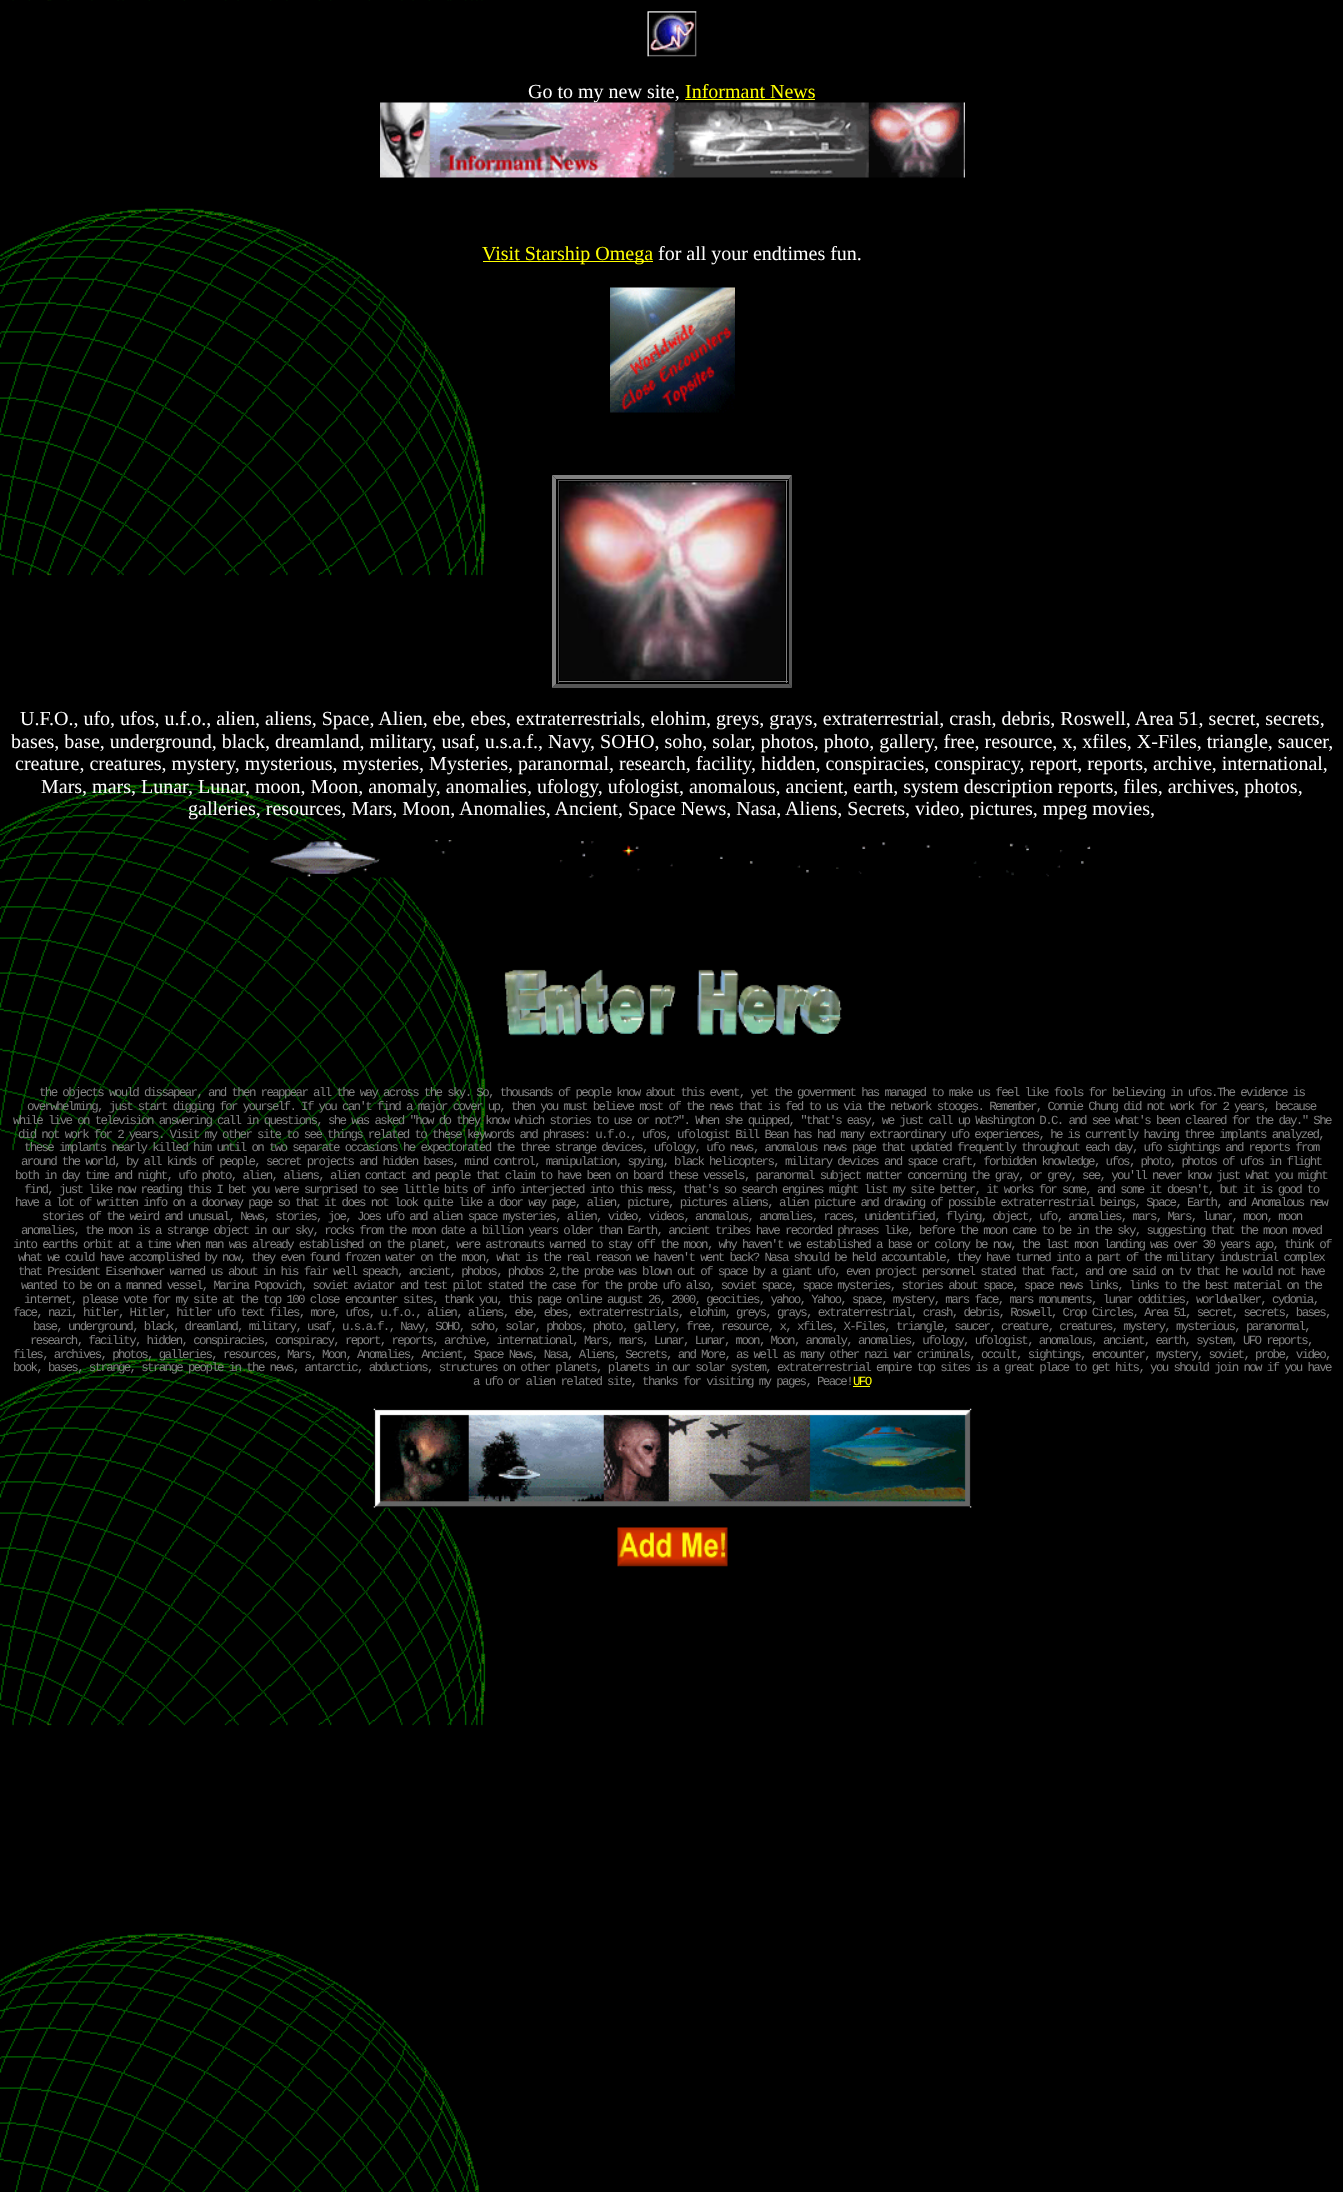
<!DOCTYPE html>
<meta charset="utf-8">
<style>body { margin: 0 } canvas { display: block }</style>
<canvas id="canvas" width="1343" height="2192"></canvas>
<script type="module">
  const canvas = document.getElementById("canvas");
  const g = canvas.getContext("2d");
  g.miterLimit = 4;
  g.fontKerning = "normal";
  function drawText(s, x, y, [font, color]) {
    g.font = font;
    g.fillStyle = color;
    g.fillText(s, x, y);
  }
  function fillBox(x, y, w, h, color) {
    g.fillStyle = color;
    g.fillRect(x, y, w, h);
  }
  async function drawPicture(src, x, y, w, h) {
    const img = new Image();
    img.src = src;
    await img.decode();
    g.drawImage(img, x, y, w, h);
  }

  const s1 = ["20px Liberation Serif", "#FFFFFF"];
  const s2 = ["20px Liberation Serif", "#FFFF00"];
  const s3 = ["12.5px Liberation Mono", "#808080"];
  const s4 = ["12.5px Liberation Mono", "#FFFF00"];

  fillBox(0, 0, 1343, 2192, "#000000");
  await drawPicture("pic1.png", 0, 0, 486, 2192);
  await drawPicture("pic2.png", 647, 11, 50, 46);
  drawText("Go to my new site,", 528, 98, s1);
  drawText("Informant News", 685, 98, s2);
  fillBox(685, 99, 130, 1, "#FFFF00");
  await drawPicture("pic3.png", 380, 102, 585, 76);
  fillBox(483, 261, 170, 1, "#FFFF00");
  drawText("Visit Starship Omega", 482, 260, s2);
  drawText("for all your endtimes fun.", 658, 260, s1);
  await drawPicture("pic4.png", 610, 287, 125, 126);
  g.fillStyle = "#808080";
  g.beginPath();
  g.moveTo(552, 475);
  g.lineTo(792, 475);
  g.lineTo(789, 479);
  g.lineTo(556, 479);
  g.closePath();
  g.fill();
  g.fillStyle = "#555555";
  g.beginPath();
  g.moveTo(792, 475);
  g.lineTo(792, 688);
  g.lineTo(789, 684);
  g.lineTo(789, 479);
  g.closePath();
  g.fill();
  g.beginPath();
  g.moveTo(792, 688);
  g.lineTo(552, 688);
  g.lineTo(556, 684);
  g.lineTo(789, 684);
  g.closePath();
  g.fill();
  g.fillStyle = "#808080";
  g.beginPath();
  g.moveTo(552, 688);
  g.lineTo(552, 475);
  g.lineTo(556, 479);
  g.lineTo(556, 684);
  g.closePath();
  g.fill();
  fillBox(558, 480, 230, 1, "#555555");
  fillBox(786, 480, 1, 203, "#808080");
  fillBox(558, 681, 230, 1, "#808080");
  fillBox(558, 480, 1, 203, "#555555");
  await drawPicture("pic5.png", 560, 482, 225, 198);
  drawText("U.F.O., ufo, ufos, u.f.o., alien, aliens, Space, Alien, ebe, ebes, extraterrestrials, elohim, greys, grays, extraterrestrial, crash, debris, Roswell, Area 51, secret, secrets,", 20, 725, s1);
  drawText("bases, base, underground, black, dreamland, military, usaf, u.s.a.f., Navy, SOHO, soho, solar, photos, photo, gallery, free, resource, x, xfiles, X-Files, triangle, saucer,", 11, 748, s1);
  drawText("creature, creatures, mystery, mysterious, mysteries, Mysteries, paranormal, research, facility, hidden, conspiracies, conspiracy, report, reports, archive, international,", 15, 770, s1);
  drawText("Mars, mars, Lunar, Lunar, moon, Moon, anomaly, anomalies, ufology, ufologist, anomalous, ancient, earth, system description reports, files, archives, photos,", 41, 793, s1);
  drawText("galleries, resources, Mars, Moon, Anomalies, Ancient, Space News, Nasa, Aliens, Secrets, video, pictures, mpeg movies,", 188, 815, s1);
  await drawPicture("pic6.png", 248, 840, 843, 38);
  await drawPicture("pic7.png", 504, 969, 338, 67);
  g.letterSpacing = "-1.67px";
  drawText("the objects would dissapear, and then reappear all the way across the sky. So, thousands of people know about this event, yet the government has managed to make us feel like fools for believing in ufos.The evidence is", 39, 1096, s3);
  drawText("overwhelming, just start digging for yourself. If you can't find a major cover up, then you must believe most of the news that is fed to us via the network stooges. Remember, Connie Chung did not work for 2 years, because", 27, 1110, s3);
  drawText("while live on television answering call in questions, she was asked \"how do they know which stories to use or not?\". When she quipped, \"that's easy, we just call up Washington D.C. and see what's been cleared for the day.\" She", 13, 1124, s3);
  drawText("did not work for 2 years. Visit my other site to see things related to these keywords and phrases: u.f.o., ufos, ufologist Bill Bean has had many extraordinary ufo experiences, he is currently having three implants analyzed,", 18, 1138, s3);
  drawText("these implants nearly killed him until on two separate occasions he expectorated the three strange devices, ufology, ufo news, anomalous news page that updated frequently throughout each day, ufo sightings and reports from", 24, 1151, s3);
  drawText("around the world, by all kinds of people, secret projects and hidden bases, mind control, manipulation, spying, black helicopters, military devices and space craft, forbidden knowledge, ufos, photo, photos of ufos in flight", 21, 1165, s3);
  drawText("both in day time and night, ufo photo, alien, aliens, alien contact and people that claim to have been on board these vessels, paranormal subject matter concerning the gray, or grey, see, you'll never know just what you might", 15, 1179, s3);
  drawText("find, just like now reading this I bet you were surprised to see little bits of info interjected into this mess, that's so search engines might list my site better, it works for some, and some it doesn't, but it is good to", 24, 1193, s3);
  drawText("have a lot of written info on a doorway page so that it does not look quite like a door way page, alien, picture, pictures aliens, alien picture and drawing of possible extraterrestrial beings, Space, Earth, and Anomalous new", 15, 1206, s3);
  drawText("stories of the weird and unusual, News, stories, joe, Joes ufo and alien space mysteries, alien, video, videos, anomalous, anomalies, races, unidentified, flying, object, ufo, anomalies, mars, Mars, lunar, moon, moon", 42, 1220, s3);
  drawText("anomalies, the moon is a strange object in our sky, rocks from the moon date a billion years older than Earth, ancient tribes have recorded phrases like, before the moon came to be in the sky, suggesting that the moon moved", 21, 1234, s3);
  drawText("into earths orbit at a time when man was already established on the planet, were astronauts warned to stay off the moon, why haven't we established a base or colony be now, the last moon landing was over 30 years ago, think of", 13, 1248, s3);
  drawText("what we could have accomplished by now, they even found frozen water on the moon, what is the real reason we haven't went back? Nasa should be held accountable, they have turned into a part of the military industrial complex", 18, 1261, s3);
  drawText("that President Eisenhower warned us about in his fair well speach, ancient, phobos, phobos 2,the probe was blown out of space by a giant ufo, even project personnel stated that fact, and one said on tv that he would not have", 18, 1275, s3);
  drawText("wanted to be on a manned vessel, Marina Popovich, soviet aviator and test pilot stated the case for the probe ufo also, soviet space, space mysteries, stories about space, space news links, links to the best material on the", 21, 1289, s3);
  drawText("internet, please vote for my site at the top 100 close encounter sites, thank you, this page online august 26, 2000, geocities, yahoo, Yahoo, space, mystery, mars face, mars monuments, lunar oddities, worldwalker, cydonia,", 24, 1303, s3);
  drawText("face, nazi, hitler, Hitler, hitler ufo text files, more, ufos, u.f.o., alien, aliens, ebe, ebes, extraterrestrials, elohim, greys, grays, extraterrestrial, crash, debris, Roswell, Crop Circles, Area 51, secret, secrets, bases,", 13, 1316, s3);
  drawText("base, underground, black, dreamland, military, usaf, u.s.a.f., Navy, SOHO, soho, solar, phobos, photo, gallery, free, resource, x, xfiles, X-Files, triangle, saucer, creature, creatures, mystery, mysterious, paranormal,", 33, 1330, s3);
  drawText("research, facility, hidden, conspiracies, conspiracy, report, reports, archive, international, Mars, mars, Lunar, Lunar, moon, Moon, anomaly, anomalies, ufology, ufologist, anomalous, ancient, earth, system, UFO reports,", 30, 1344, s3);
  drawText("files, archives, photos, galleries, resources, Mars, Moon, Anomalies, Ancient, Space News, Nasa, Aliens, Secrets, and More, as well as many other nazi war criminals, occult, sightings, encounter, mystery, soviet, probe, video,", 13, 1358, s3);
  drawText("book, bases, strange, strange people in the news, antarctic, abductions, structures on other planets, planets in our solar system, extraterrestrial empire top sites is a great place to get hits, you should join now if you have", 13, 1371, s3);
  drawText("a ufo or alien related site, thanks for visiting my pages, Peace!", 473, 1385, s3);
  fillBox(853, 1386, 17, 1, "#FFFF00");
  drawText("UFO", 853, 1385, s4);
  await drawPicture("pic8.png", 373, 1408, 599, 100);
  await drawPicture("pic9.png", 617, 1527, 111, 40);
</script>
